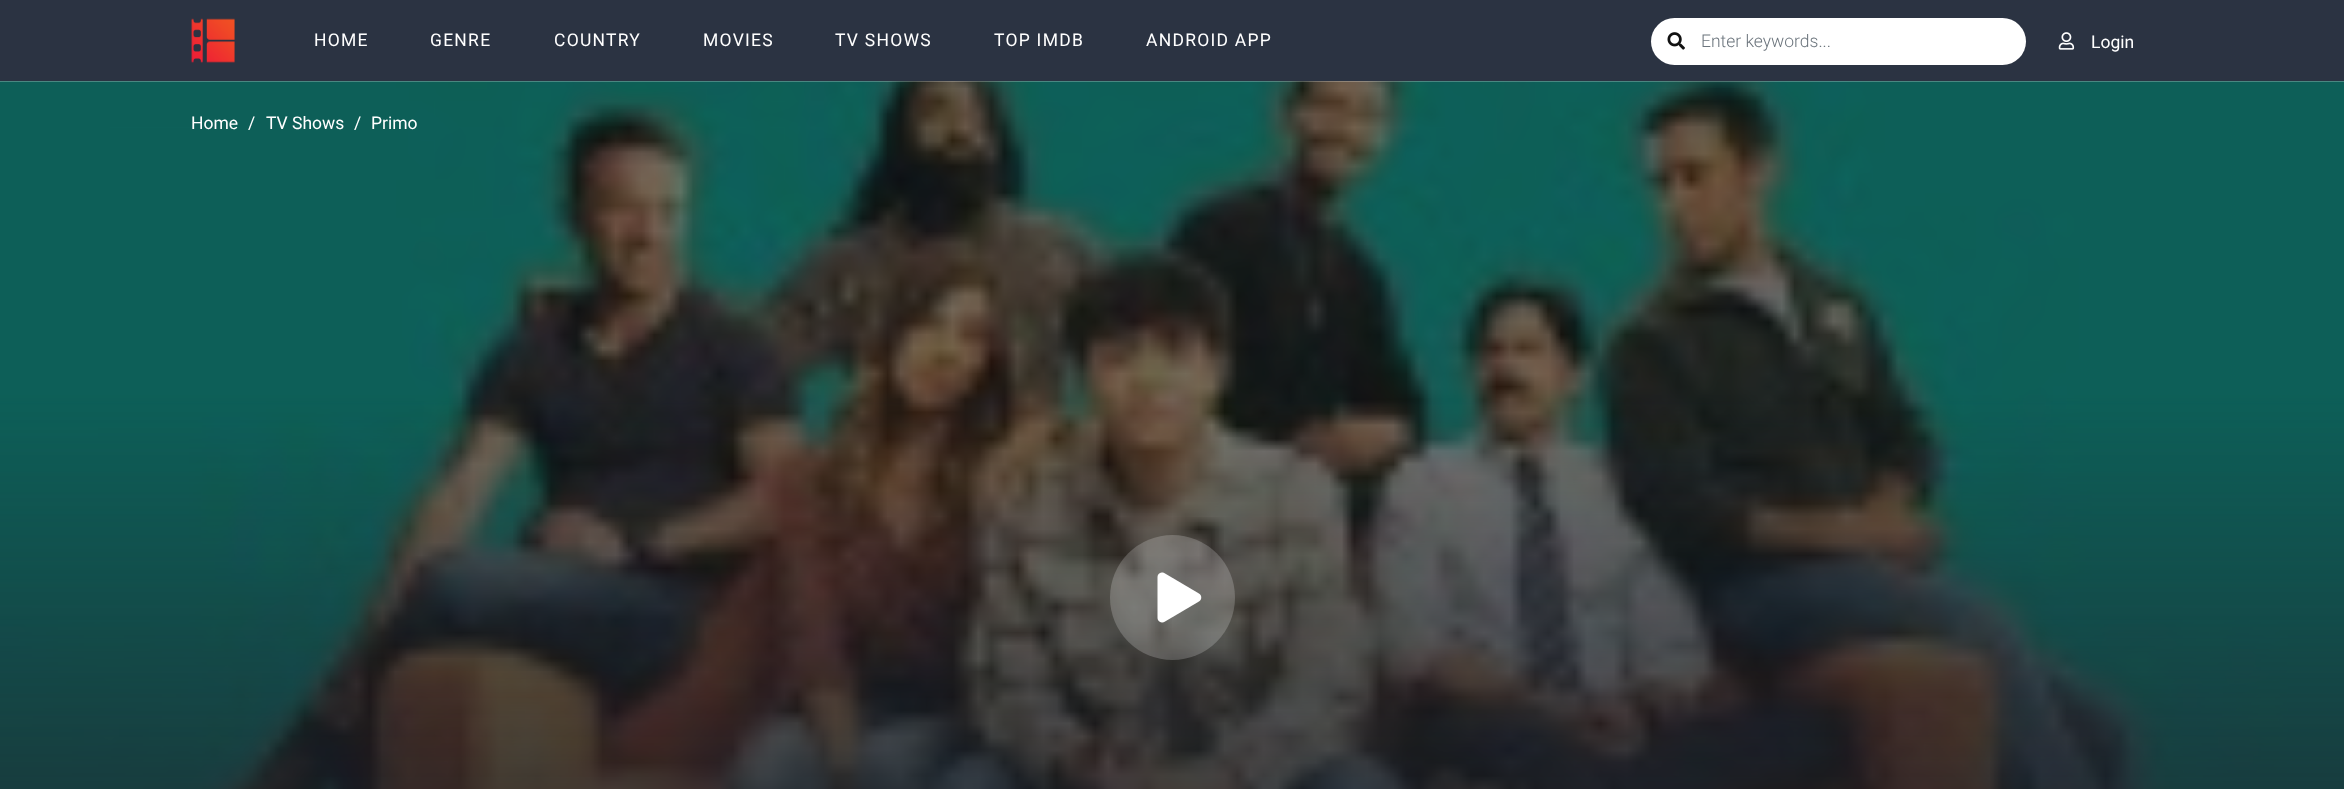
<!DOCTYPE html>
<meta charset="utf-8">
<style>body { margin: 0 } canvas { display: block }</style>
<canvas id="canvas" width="2344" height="789"></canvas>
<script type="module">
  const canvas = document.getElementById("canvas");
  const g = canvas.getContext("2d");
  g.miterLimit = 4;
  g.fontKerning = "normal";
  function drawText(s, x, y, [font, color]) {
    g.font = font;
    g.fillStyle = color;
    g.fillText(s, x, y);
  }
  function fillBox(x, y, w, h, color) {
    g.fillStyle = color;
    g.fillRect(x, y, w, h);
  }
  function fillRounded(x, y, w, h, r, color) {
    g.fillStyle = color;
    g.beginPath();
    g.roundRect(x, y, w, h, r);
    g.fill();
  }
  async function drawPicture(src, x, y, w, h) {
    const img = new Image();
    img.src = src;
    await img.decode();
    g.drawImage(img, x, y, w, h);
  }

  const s1 = ["17.5px Roboto", "#FFFFFF"];
  const s2 = ["300 17.5px Roboto", "#6C757D"];

  fillBox(0, 0, 2344, 789, "#FFFFFF");
  fillBox(0, 0, 2344, 81, "#2B3342");
  await drawPicture("pic1.png", 191, 18, 44, 45);
  g.letterSpacing = "1.25px";
  drawText("HOME", 314, 46, s1);
  drawText("GENRE", 430, 46, s1);
  drawText("COUNTRY", 554, 46, s1);
  drawText("MOVIES", 703, 46, s1);
  drawText("TV SHOWS", 835, 46, s1);
  drawText("TOP IMDB", 994, 46, s1);
  drawText("ANDROID APP", 1146, 46, s1);
  fillRounded(1651, 18, 375, 47, 23.5, "#FFFFFF");
  await drawPicture("pic2.png", 1667, 32, 18, 18);
  g.letterSpacing = "0px";
  drawText("Enter keywords...", 1701, 47, s2);
  await drawPicture("pic3.png", 2058, 32, 17, 18);
  drawText("Login", 2091, 48, s1);
  await drawPicture("pic4.png", 0, 81, 2344, 708);
  drawText("Home", 191, 129, s1);
  drawText("/", 248, 129, s1);
  drawText("TV Shows", 266, 129, s1);
  drawText("/", 354, 129, s1);
  drawText("Primo", 371, 129, s1);
  g.fillStyle = "rgba(255, 255, 255, 0.2)";
  g.beginPath();
  g.arc(1172.5, 597.5, 62.5, 0, Math.PI * 2);
  g.fill();
  await drawPicture("pic5.png", 1157, 572, 45, 51);
</script>
